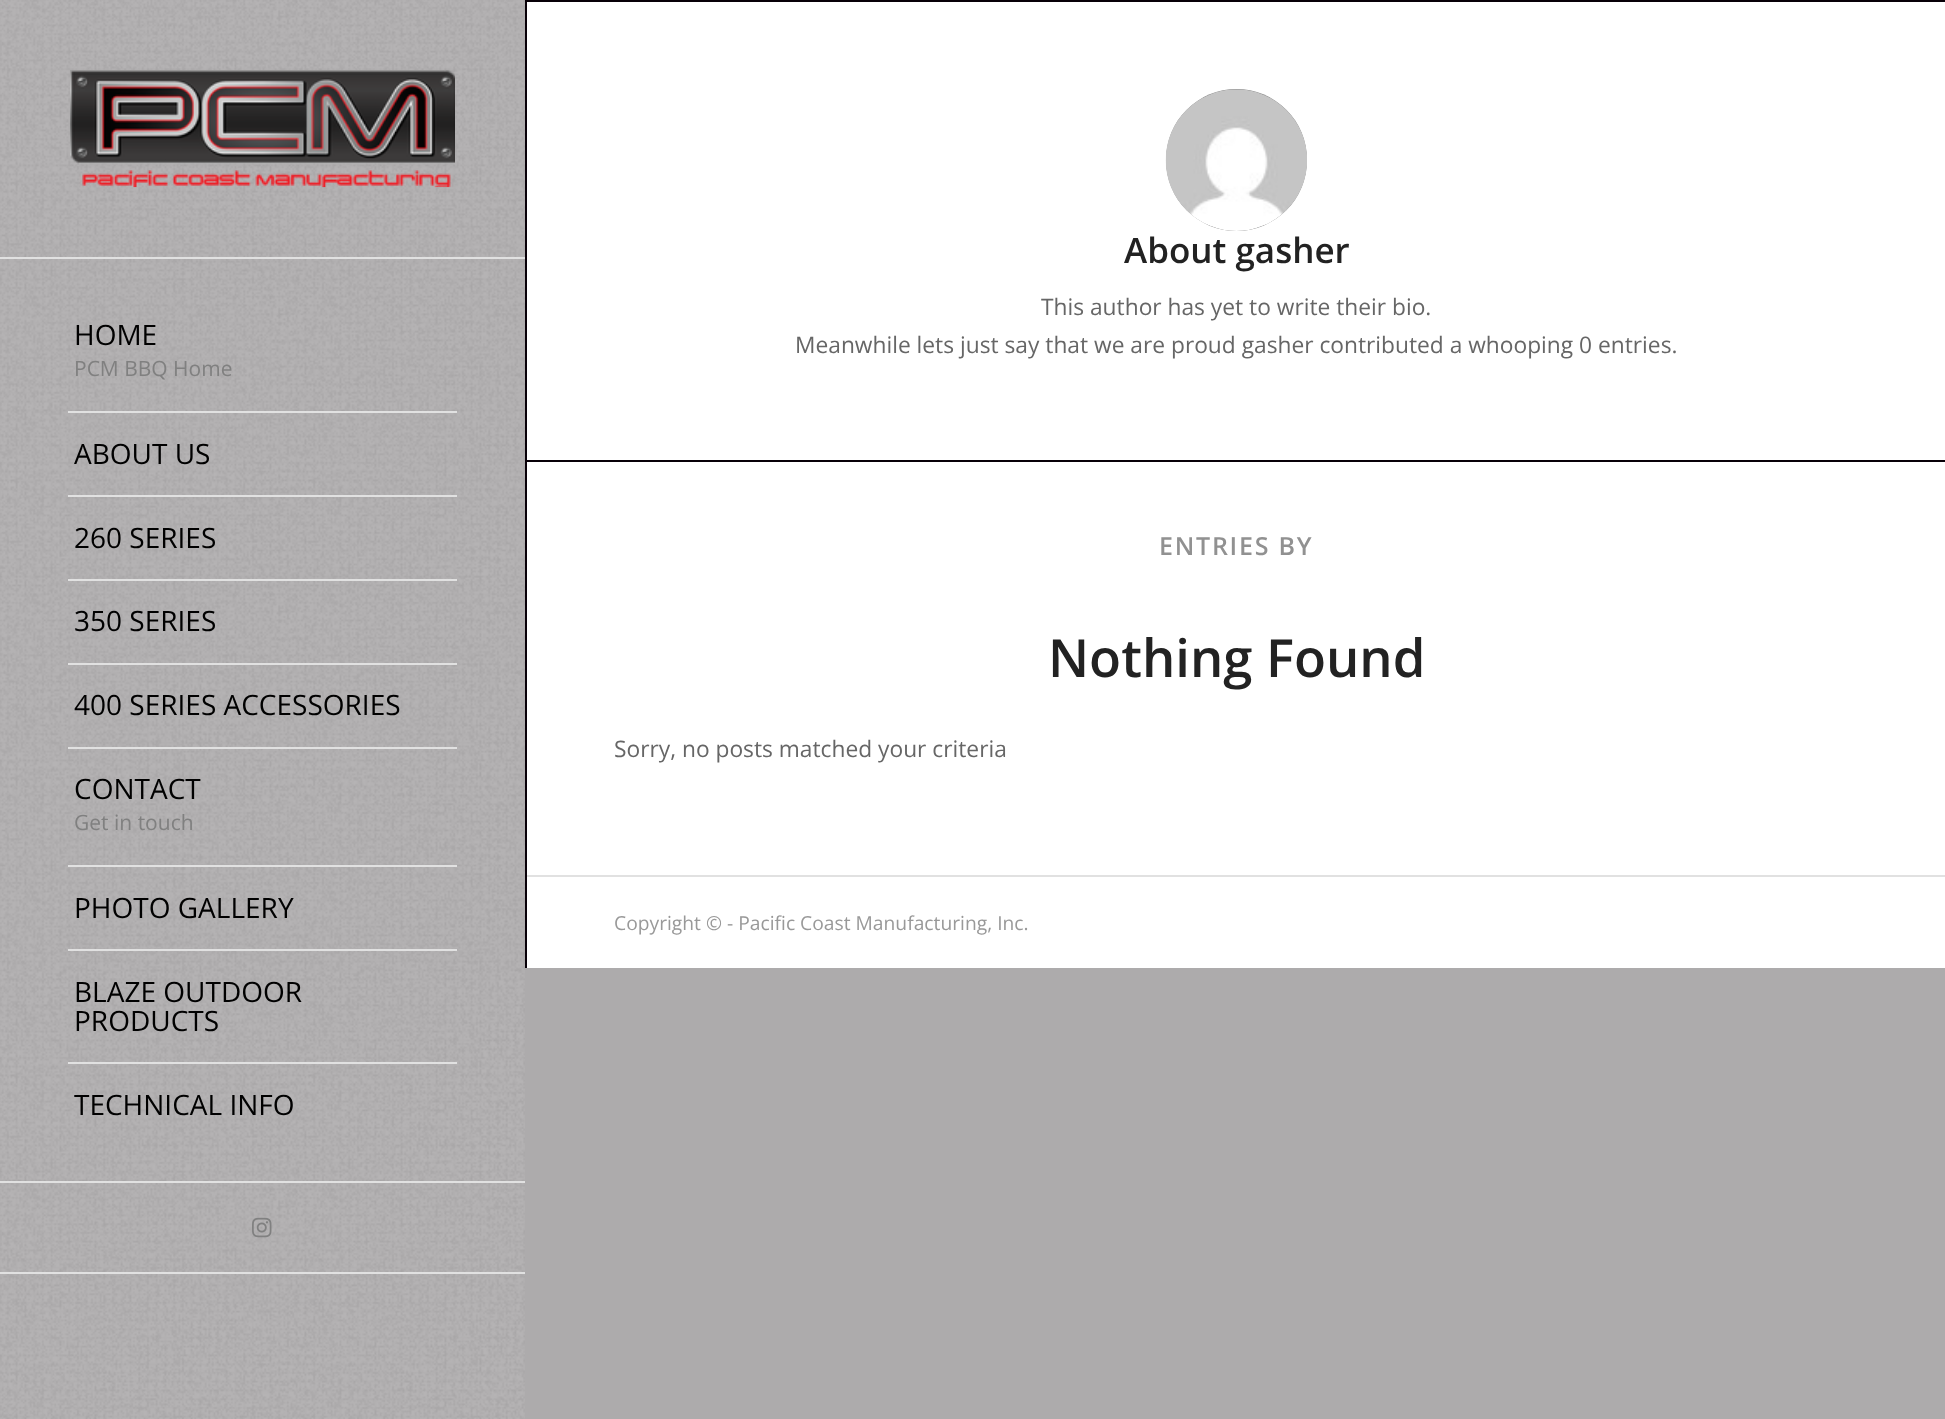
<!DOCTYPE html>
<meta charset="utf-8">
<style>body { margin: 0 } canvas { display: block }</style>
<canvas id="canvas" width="1945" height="1419"></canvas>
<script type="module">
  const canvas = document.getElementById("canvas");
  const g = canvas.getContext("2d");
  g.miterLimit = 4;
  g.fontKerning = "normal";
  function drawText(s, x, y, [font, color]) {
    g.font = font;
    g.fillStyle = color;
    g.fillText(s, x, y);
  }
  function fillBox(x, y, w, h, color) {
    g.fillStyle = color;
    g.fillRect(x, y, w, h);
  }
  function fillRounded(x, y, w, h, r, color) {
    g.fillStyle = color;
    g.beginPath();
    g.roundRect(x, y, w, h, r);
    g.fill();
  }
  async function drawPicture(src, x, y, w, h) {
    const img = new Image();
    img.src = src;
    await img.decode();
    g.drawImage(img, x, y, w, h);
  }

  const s1 = ["28px Open Sans", "#000000"];
  const s2 = ["21px Open Sans", "#808080"];
  const s3 = ["600 35px Open Sans", "#222222"];
  const s4 = ["22.75px Open Sans", "#666666"];
  const s5 = ["600 25px Open Sans", "#919191"];
  const s6 = ["600 52.5px Open Sans", "#222222"];
  const s7 = ["19.25px Open Sans", "#999999"];

  fillBox(0, 0, 1945, 1419, "#ADABAC");
  await drawPicture("pic1.png", 0, 0, 525, 1419);
  fillBox(0, 1272, 525, 2, "#E1E1E1");
  fillBox(0, 257, 525, 2, "#E1E1E1");
  await drawPicture("pic2.png", 70, 70, 385, 118);
  fillBox(68, 411, 389, 2, "#E1E1E1");
  drawText("HOME", 74, 345, s1);
  drawText("PCM BBQ Home", 74, 376, s2);
  fillBox(68, 495, 389, 2, "#E1E1E1");
  drawText("ABOUT US", 74, 464, s1);
  fillBox(68, 579, 389, 2, "#E1E1E1");
  drawText("260 SERIES", 74, 548, s1);
  fillBox(68, 663, 389, 2, "#E1E1E1");
  drawText("350 SERIES", 74, 631, s1);
  fillBox(68, 747, 389, 2, "#E1E1E1");
  drawText("400 SERIES ACCESSORIES", 74, 715, s1);
  fillBox(68, 865, 389, 2, "#E1E1E1");
  drawText("CONTACT", 74, 799, s1);
  drawText("Get in touch", 74, 830, s2);
  fillBox(68, 949, 389, 2, "#E1E1E1");
  drawText("PHOTO GALLERY", 74, 918, s1);
  fillBox(68, 1062, 389, 2, "#E1E1E1");
  drawText("BLAZE OUTDOOR", 74, 1002, s1);
  drawText("PRODUCTS", 74, 1031, s1);
  drawText("TECHNICAL INFO", 74, 1115, s1);
  fillBox(0, 1181, 525, 2, "#E1E1E1");
  await drawPicture("pic3.png", 252, 1217, 20, 21);
  fillBox(525, 0, 2, 968, "#080008");
  fillBox(527, 2, 1418, 873, "#FFFFFF");
  fillBox(527, 0, 1418, 2, "#080008");
  fillRounded(1166, 89, 141, 142, 70.5, "#919191");
  await drawPicture("pic4.png", 1165, 89, 142, 142);
  drawText("About gasher", 1124, 263, s3);
  drawText("This author has yet to write their bio.", 1041, 315, s4);
  drawText("Meanwhile lets just say that we are proud gasher contributed a whooping 0 entries.", 795, 353, s4);
  fillBox(525, 460, 1420, 2, "#080008");
  g.letterSpacing = "1.75px";
  drawText("ENTRIES BY", 1159, 555, s5);
  g.letterSpacing = "0px";
  drawText("Nothing Found", 1048, 677, s6);
  drawText("Sorry, no posts matched your criteria", 614, 757, s4);
  fillBox(527, 877, 1418, 91, "#FFFFFF");
  fillBox(527, 875, 1418, 2, "#E1E1E1");
  drawText("Copyright © - Pacific Coast Manufacturing, Inc.", 614, 930, s7);
</script>
